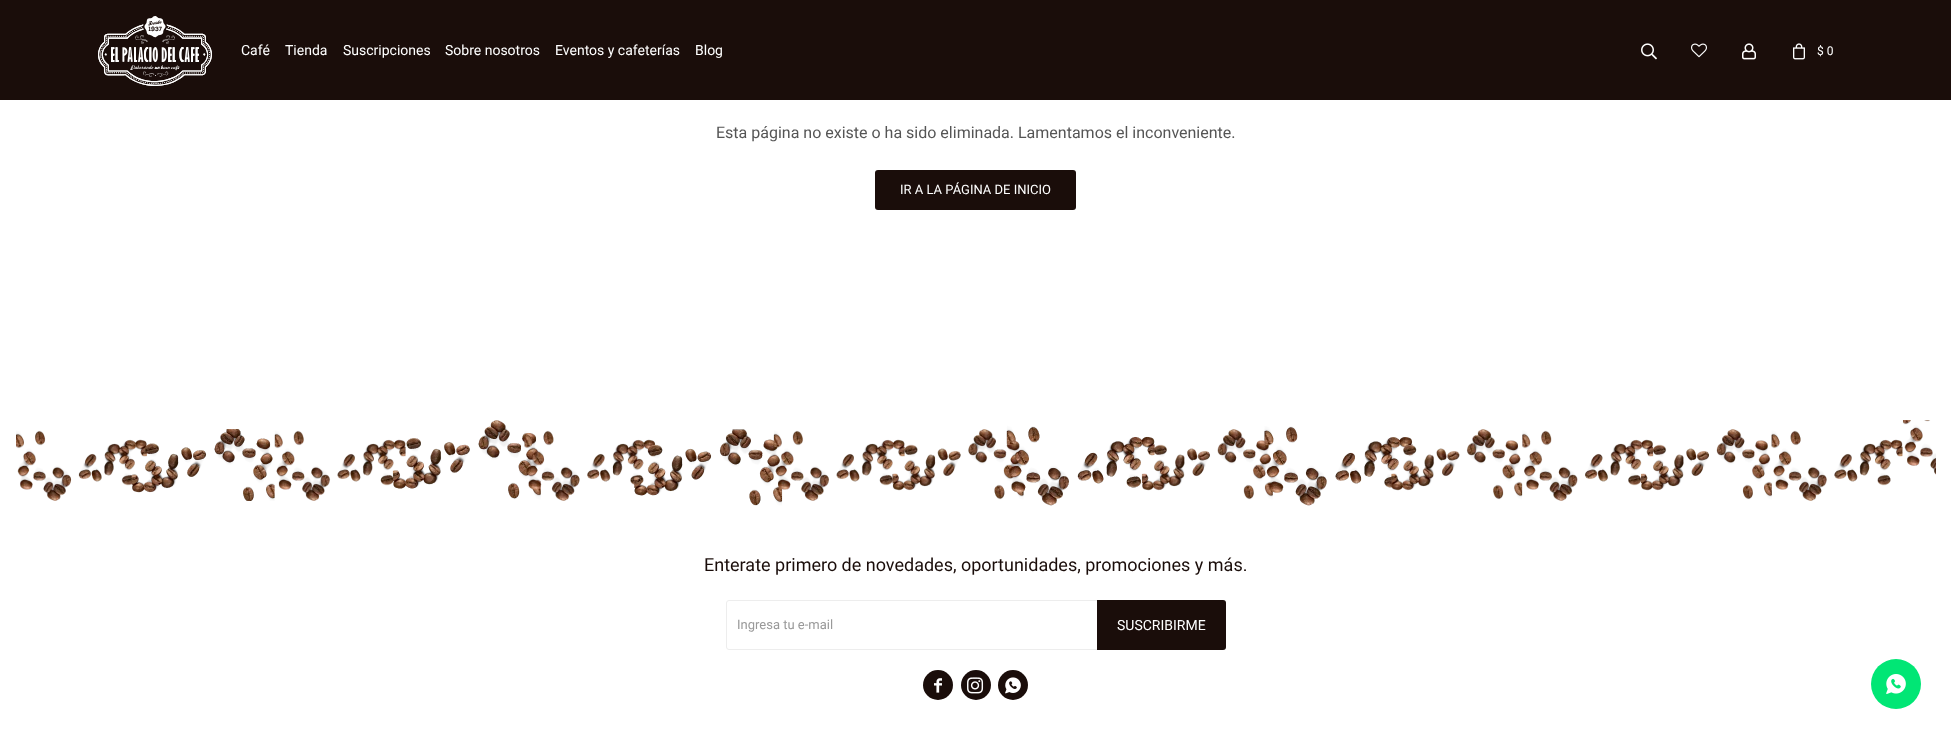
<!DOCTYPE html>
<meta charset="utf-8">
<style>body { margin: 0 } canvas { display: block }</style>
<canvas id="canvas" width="1951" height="739"></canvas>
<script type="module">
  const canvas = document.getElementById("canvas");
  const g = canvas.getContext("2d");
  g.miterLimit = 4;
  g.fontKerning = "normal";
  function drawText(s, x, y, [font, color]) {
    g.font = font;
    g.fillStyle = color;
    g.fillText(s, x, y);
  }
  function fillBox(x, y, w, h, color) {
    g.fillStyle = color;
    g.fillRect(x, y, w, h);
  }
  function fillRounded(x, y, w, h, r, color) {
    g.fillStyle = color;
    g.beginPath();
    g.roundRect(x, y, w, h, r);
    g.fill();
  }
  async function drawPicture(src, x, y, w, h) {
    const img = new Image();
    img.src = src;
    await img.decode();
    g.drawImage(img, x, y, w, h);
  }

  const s1 = ["14px Roboto", "#FFFFFF"];
  const s2 = ["12px Roboto", "#FFFFFF"];
  const s3 = ["16px Roboto", "#555555"];
  const s4 = ["13px Roboto", "#FFFFFF"];
  const s5 = ["18px Roboto", "#1A0D0A"];
  const s6 = ["13px Roboto", "#999999"];

  fillBox(0, 0, 1951, 739, "#FFFFFF");
  fillBox(0, 0, 1951, 100, "#1A0D0A");
  await drawPicture("pic1.png", 98, 16, 114, 70);
  drawText("Café", 241, 55, s1);
  drawText("Tienda", 285, 55, s1);
  drawText("Suscripciones", 343, 55, s1);
  drawText("Sobre nosotros", 445, 55, s1);
  drawText("Eventos y cafeterías", 555, 55, s1);
  drawText("Blog", 695, 55, s1);
  await drawPicture("pic2.png", 1641, 43, 16, 17);
  await drawPicture("pic3.png", 1691, 43, 16, 15);
  await drawPicture("pic4.png", 1742, 43, 14, 17);
  await drawPicture("pic5.png", 1793, 43, 12, 17);
  drawText("$ 0", 1817, 55, s2);
  drawText("Esta página no existe o ha sido eliminada. Lamentamos el inconveniente.", 716, 138, s3);
  fillRounded(875, 170, 201, 40, 3, "#1A0D0A");
  drawText("IR A LA PÁGINA DE INICIO", 900, 194, s4);
  await drawPicture("pic6.png", 16, 420, 1920, 86);
  drawText("Enterate primero de novedades, oportunidades, promociones y más.", 704, 571, s5);
  g.beginPath();
  g.roundRect(726.5, 600.5, 499, 49, 2.5);
  g.strokeStyle = "#EDEDED";
  g.stroke();
  drawText("Ingresa tu e-mail", 737, 629, s6);
  g.fillStyle = "#1A0D0A";
  g.beginPath();
  g.roundRect(1097, 600, 129, 50, [0, 3, 3, 0]);
  g.fill();
  drawText("SUSCRIBIRME", 1117, 630, s1);
  g.fillStyle = "#1A0D0A";
  g.beginPath();
  g.arc(938, 685, 15, 0, Math.PI * 2);
  g.fill();
  await drawPicture("pic7.png", 934, 678, 8, 15);
  g.beginPath();
  g.arc(976, 685, 15, 0, Math.PI * 2);
  g.fill();
  await drawPicture("pic8.png", 967, 677, 17, 17);
  g.beginPath();
  g.arc(1013, 685, 15, 0, Math.PI * 2);
  g.fill();
  await drawPicture("pic9.png", 1005, 677, 16, 17);
  g.fillStyle = "#01E675";
  g.beginPath();
  g.arc(1896, 684, 25, 0, Math.PI * 2);
  g.fill();
  await drawPicture("pic10.png", 1886, 674, 20, 20);
</script>
